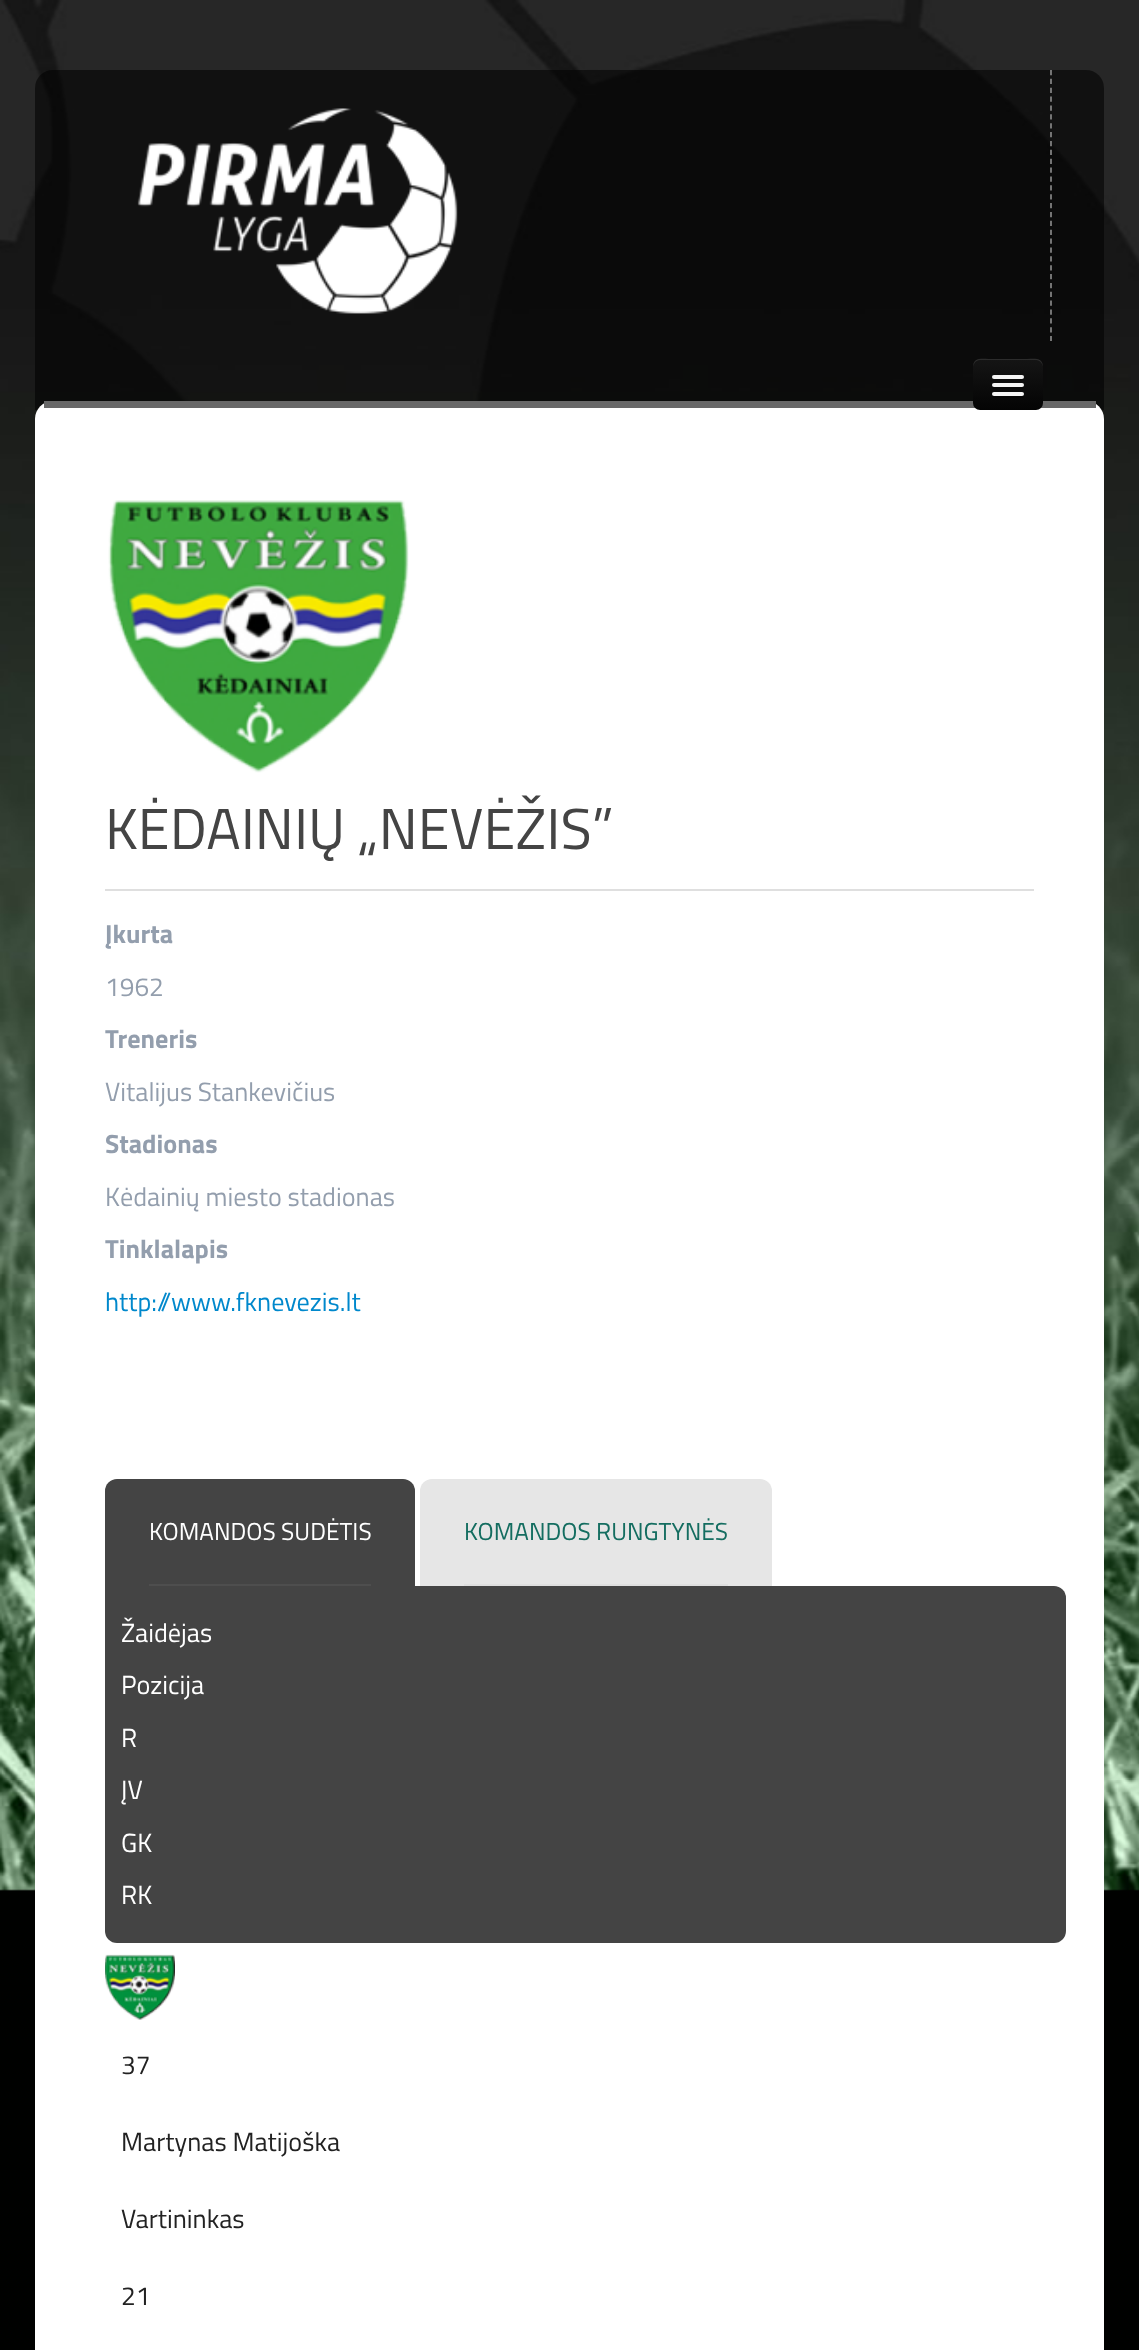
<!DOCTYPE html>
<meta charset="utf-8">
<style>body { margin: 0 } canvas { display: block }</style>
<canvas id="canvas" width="1139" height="2350"></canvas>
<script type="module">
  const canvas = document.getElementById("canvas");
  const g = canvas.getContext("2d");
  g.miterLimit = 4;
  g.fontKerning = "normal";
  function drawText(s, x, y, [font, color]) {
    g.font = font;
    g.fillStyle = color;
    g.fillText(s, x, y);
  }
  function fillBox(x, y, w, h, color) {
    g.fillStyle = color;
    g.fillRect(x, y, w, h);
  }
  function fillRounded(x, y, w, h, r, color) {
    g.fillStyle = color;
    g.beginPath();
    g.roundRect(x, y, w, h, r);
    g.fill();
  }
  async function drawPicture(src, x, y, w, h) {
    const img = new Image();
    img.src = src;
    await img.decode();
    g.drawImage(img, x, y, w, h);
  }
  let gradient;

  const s1 = ["57.75px Titillium Web", "#444444"];
  const s2 = ["bold 26.25px Titillium Web", "#939EAD"];
  const s3 = ["26.25px Titillium Web", "#939EAD"];
  const s4 = ["26.25px Titillium Web", "#0088CC"];
  const s5 = ["24.5px Titillium Web", "#FFFFFF"];
  const s6 = ["24.5px Titillium Web", "#146D60"];
  const s7 = ["26.25px Titillium Web", "#FFFFFF"];
  const s8 = ["26.25px Titillium Web", "#222222"];

  fillBox(0, 0, 1139, 2350, "#000100");
  await drawPicture("pic1.png", 0, 0, 1139, 1891);
  g.fillStyle = "rgba(0, 0, 0, 0.54)";
  g.beginPath();
  g.roundRect(35, 70, 1069, 340, [18, 18, 0, 0]);
  g.fill();
  g.beginPath();
  g.moveTo(1051, 70);
  g.lineTo(1051, 341);
  g.strokeStyle = "#808080";
  g.lineWidth = 1.8;
  g.setLineDash([5.25, 3.62]);
  g.stroke();
  await drawPicture("pic2.png", 137, 108, 321, 206);
  g.fillStyle = "#FFFFFF";
  g.beginPath();
  g.moveTo(53, 401);
  g.lineTo(1086, 401);
  g.bezierCurveTo(1096, 401, 1104, 409, 1104, 419);
  g.lineTo(1104, 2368);
  g.lineTo(35, 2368);
  g.lineTo(35, 419);
  g.bezierCurveTo(35, 409, 43, 401, 53, 401);
  g.closePath();
  g.fill();
  fillBox(44, 401, 1052, 7, "#686868");
  g.fillStyle = "rgba(255, 255, 255, 0.07)";
  g.beginPath();
  g.moveTo(973, 402);
  g.bezierCurveTo(973, 413, 981, 411, 989, 411);
  g.lineTo(1027, 411);
  g.bezierCurveTo(1035, 411, 1043, 413, 1043, 402);
  g.bezierCurveTo(1043, 406, 1040, 410, 1036, 410);
  g.lineTo(980, 410);
  g.bezierCurveTo(976, 410, 973, 406, 973, 402);
  g.closePath();
  g.fill();
  gradient = g.createLinearGradient(1008, 359, 1008, 410);
  gradient.addColorStop(0, "#151515");
  gradient.addColorStop(1, "#040404");
  g.fillStyle = gradient;
  g.beginPath();
  g.roundRect(973, 359, 70, 51, 7);
  g.fill();
  g.fillStyle = "#2C2C2C";
  g.beginPath();
  g.moveTo(980, 360);
  g.lineTo(1036, 360);
  g.bezierCurveTo(1040, 360, 1043, 364, 1043, 368);
  g.bezierCurveTo(1043, 357, 1035, 359, 1027, 359);
  g.lineTo(989, 359);
  g.bezierCurveTo(981, 359, 973, 357, 973, 368);
  g.bezierCurveTo(973, 364, 976, 360, 980, 360);
  g.closePath();
  g.fill();
  g.fillStyle = "#0B0B0B";
  g.beginPath();
  g.moveTo(992.5, 377);
  g.lineTo(992, 378.5);
  g.bezierCurveTo(992.5, 381, 997.5, 380, 998.5, 380);
  g.lineTo(1017.5, 380);
  g.bezierCurveTo(1018.5, 380, 1023.5, 381, 1024, 378.5);
  g.lineTo(1023.5, 377);
  g.bezierCurveTo(1023.5, 377.5, 1023, 378, 1022, 378);
  g.lineTo(994, 378);
  g.bezierCurveTo(993, 378, 992.5, 377.5, 992.5, 377);
  g.closePath();
  g.fill();
  fillRounded(992, 375, 32, 4, 2, "#F5F5F5");
  g.fillStyle = "#090909";
  g.beginPath();
  g.moveTo(992.5, 386);
  g.lineTo(992, 387.5);
  g.bezierCurveTo(992.5, 390, 997.5, 389, 998.5, 389);
  g.lineTo(1017.5, 389);
  g.bezierCurveTo(1018.5, 389, 1023.5, 390, 1024, 387.5);
  g.lineTo(1023.5, 386);
  g.bezierCurveTo(1023.5, 386.5, 1022.5, 387, 1022, 387);
  g.lineTo(994, 387);
  g.bezierCurveTo(993.5, 387, 992.5, 386.5, 992.5, 386);
  g.closePath();
  g.fill();
  fillRounded(992, 383, 32, 4, 2, "#F5F5F5");
  g.fillStyle = "#060606";
  g.beginPath();
  g.moveTo(992.5, 394.5);
  g.bezierCurveTo(991.5, 396, 992, 397.5, 993.5, 398);
  g.lineTo(1022.5, 398);
  g.bezierCurveTo(1024, 397.5, 1024.5, 396, 1023.5, 394.5);
  g.lineTo(1022, 395.5);
  g.lineTo(994, 395.5);
  g.closePath();
  g.fill();
  fillRounded(992, 392, 32, 4, 2, "#F5F5F5");
  await drawPicture("pic3.png", 108, 500, 301, 273);
  fillBox(105, 889, 929, 2, "#DFDFDF");
  drawText("KĖDAINIŲ „NEVĖŽIS”", 105, 849, s1);
  drawText("Įkurta", 105, 943, s2);
  drawText("1962", 105, 996, s3);
  drawText("Treneris", 105, 1048, s2);
  drawText("Vitalijus Stankevičius", 105, 1101, s3);
  drawText("Stadionas", 105, 1153, s2);
  drawText("Kėdainių miesto stadionas", 105, 1206, s3);
  drawText("Tinklalapis", 105, 1258, s2);
  drawText("http://www.fknevezis.lt", 105, 1311, s4);
  g.fillStyle = "#444444";
  g.beginPath();
  g.roundRect(105, 1586, 961, 357, [0, 12, 12, 12]);
  g.fill();
  g.beginPath();
  g.roundRect(105, 1479, 310, 108, [12, 12, 0, 0]);
  g.fill();
  fillBox(149, 1584, 222, 2, "#4E4E4E");
  drawText("KOMANDOS SUDĖTIS", 149, 1540, s5);
  g.fillStyle = "#E6E6E6";
  g.beginPath();
  g.roundRect(420, 1479, 352, 107, [12, 12, 0, 0]);
  g.fill();
  fillBox(464, 1584, 264, 2, "#DFDFDF");
  drawText("KOMANDOS RUNGTYNĖS", 464, 1540, s6);
  drawText("Žaidėjas", 121, 1642, s7);
  drawText("Pozicija", 121, 1694, s7);
  drawText("R", 121, 1747, s7);
  drawText("ĮV", 121, 1799, s7);
  drawText("GK", 121, 1852, s7);
  drawText("RK", 121, 1904, s7);
  await drawPicture("pic4.png", 105, 1954, 70, 66);
  drawText("37", 121, 2074, s8);
  drawText("Martynas Matijoška", 121, 2151, s8);
  drawText("Vartininkas", 121, 2228, s8);
  drawText("21", 121, 2305, s8);
</script>
